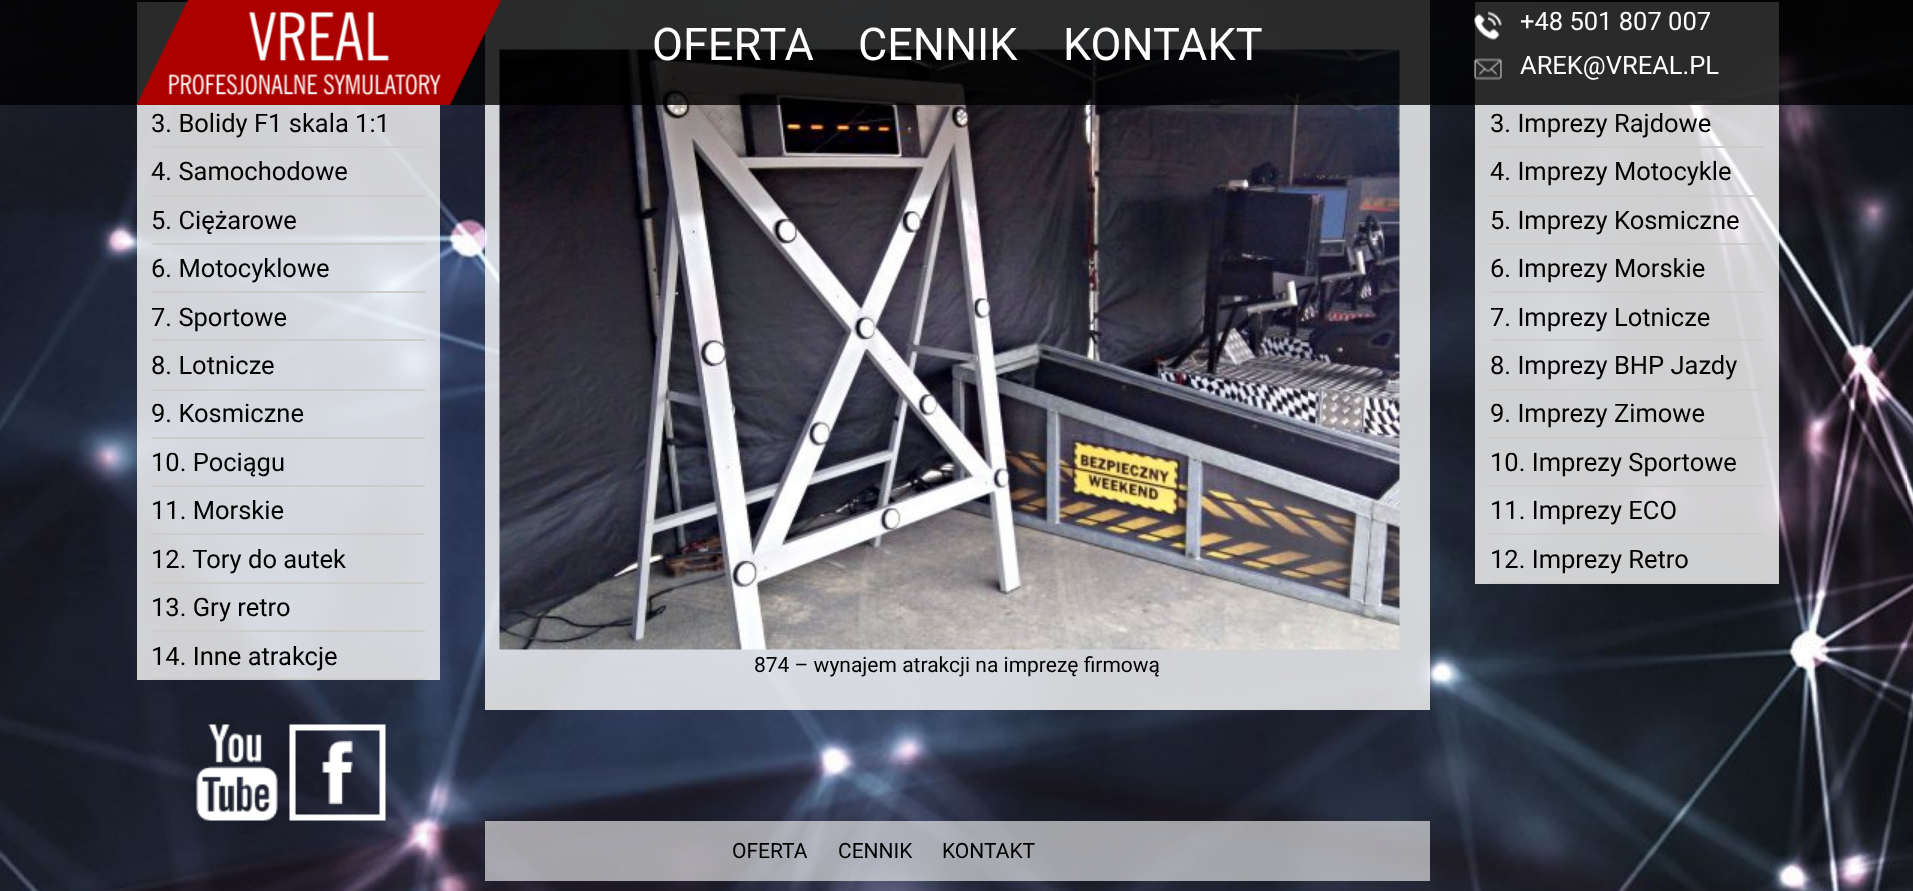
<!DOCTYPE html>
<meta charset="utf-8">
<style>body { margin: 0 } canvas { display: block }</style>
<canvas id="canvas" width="1913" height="891"></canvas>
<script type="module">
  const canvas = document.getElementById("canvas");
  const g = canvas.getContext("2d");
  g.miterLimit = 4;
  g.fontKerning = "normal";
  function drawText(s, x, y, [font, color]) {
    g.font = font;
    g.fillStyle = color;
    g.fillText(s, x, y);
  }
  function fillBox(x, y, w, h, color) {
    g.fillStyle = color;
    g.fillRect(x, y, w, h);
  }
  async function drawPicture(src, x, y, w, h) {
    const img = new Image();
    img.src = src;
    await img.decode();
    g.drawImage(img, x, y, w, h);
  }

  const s1 = ["45px Roboto", "#FFFFFF"];
  const s2 = ["25.5px Roboto", "#FFFFFF"];
  const s3 = ["25.5px Roboto", "#000000"];
  const s4 = ["21px Roboto", "#000000"];

  fillBox(0, 0, 1913, 891, "#FFFFFF");
  await drawPicture("pic1.png", 0, 0, 1913, 891);
  fillBox(137, 2, 303, 678, "rgba(255, 255, 255, 0.8)");
  fillBox(152, 50, 13, 2, "#CCCCCC");
  fillBox(1475, 2, 304, 582, "rgba(255, 255, 255, 0.8)");
  fillBox(1490, 50, 274, 2, "#CCCCCC");
  fillBox(1490, 98, 274, 2, "#CCCCCC");
  fillBox(485, 0, 945, 710, "rgba(255, 255, 255, 0.8)");
  await drawPicture("pic7.png", 499, 49, 901, 601);
  fillBox(0, 0, 1913, 105, "rgba(0, 0, 0, 0.8)");
  await drawPicture("pic2.png", 136, 0, 365, 105);
  drawText("OFERTA", 652, 60, s1);
  drawText("CENNIK", 858, 60, s1);
  drawText("KONTAKT", 1063, 60, s1);
  await drawPicture("pic3.png", 1474, 11, 28, 29);
  drawText("+48 501 807 007", 1520, 30, s2);
  await drawPicture("pic4.png", 1474, 58, 28, 22);
  drawText("AREK@VREAL.PL", 1520, 74, s2);
  fillBox(152, 146, 273, 2, "#CCCCCC");
  drawText("3. Bolidy F1 skala 1:1", 151, 132, s3);
  fillBox(152, 195, 273, 2, "#CCCCCC");
  drawText("4. Samochodowe", 151, 180, s3);
  fillBox(152, 243, 273, 2, "#CCCCCC");
  drawText("5. Ciężarowe", 151, 229, s3);
  fillBox(152, 291, 273, 2, "#CCCCCC");
  drawText("6. Motocyklowe", 151, 277, s3);
  fillBox(152, 339, 273, 2, "#CCCCCC");
  drawText("7. Sportowe", 151, 326, s3);
  fillBox(152, 389, 273, 2, "#CCCCCC");
  drawText("8. Lotnicze", 151, 374, s3);
  fillBox(152, 437, 273, 2, "#CCCCCC");
  drawText("9. Kosmiczne", 151, 422, s3);
  fillBox(152, 485, 273, 2, "#CCCCCC");
  drawText("10. Pociągu", 151, 471, s3);
  fillBox(152, 533, 273, 2, "#CCCCCC");
  drawText("11. Morskie", 151, 519, s3);
  fillBox(152, 582, 273, 2, "#CCCCCC");
  drawText("12. Tory do autek", 151, 568, s3);
  fillBox(152, 630, 273, 2, "#CCCCCC");
  drawText("13. Gry retro", 151, 616, s3);
  fillBox(152, 678, 273, 2, "#CCCCCC");
  drawText("14. Inne atrakcje", 151, 665, s3);
  await drawPicture("pic5.png", 196, 724, 82, 97);
  await drawPicture("pic6.png", 289, 724, 97, 97);
  fillBox(1490, 146, 274, 2, "#CCCCCC");
  drawText("3. Imprezy Rajdowe", 1490, 132, s3);
  fillBox(1490, 195, 274, 2, "#CCCCCC");
  drawText("4. Imprezy Motocykle", 1490, 180, s3);
  fillBox(1490, 243, 274, 2, "#CCCCCC");
  drawText("5. Imprezy Kosmiczne", 1490, 229, s3);
  fillBox(1490, 291, 274, 2, "#CCCCCC");
  drawText("6. Imprezy Morskie", 1490, 277, s3);
  fillBox(1490, 339, 274, 2, "#CCCCCC");
  drawText("7. Imprezy Lotnicze", 1490, 326, s3);
  fillBox(1490, 389, 274, 2, "#CCCCCC");
  drawText("8. Imprezy BHP Jazdy", 1490, 374, s3);
  fillBox(1490, 437, 274, 2, "#CCCCCC");
  drawText("9. Imprezy Zimowe", 1490, 422, s3);
  fillBox(1490, 485, 274, 2, "#CCCCCC");
  drawText("10. Imprezy Sportowe", 1490, 471, s3);
  fillBox(1490, 533, 274, 2, "#CCCCCC");
  drawText("11. Imprezy ECO", 1490, 519, s3);
  fillBox(1490, 582, 274, 2, "#CCCCCC");
  drawText("12. Imprezy Retro", 1490, 568, s3);
  drawText("874 – wynajem atrakcji na imprezę firmową", 754, 672, s4);
  fillBox(485, 821, 945, 60, "rgba(255, 255, 255, 0.6)");
  drawText("OFERTA", 732, 858, s4);
  drawText("CENNIK", 838, 858, s4);
  drawText("KONTAKT", 942, 858, s4);
</script>
